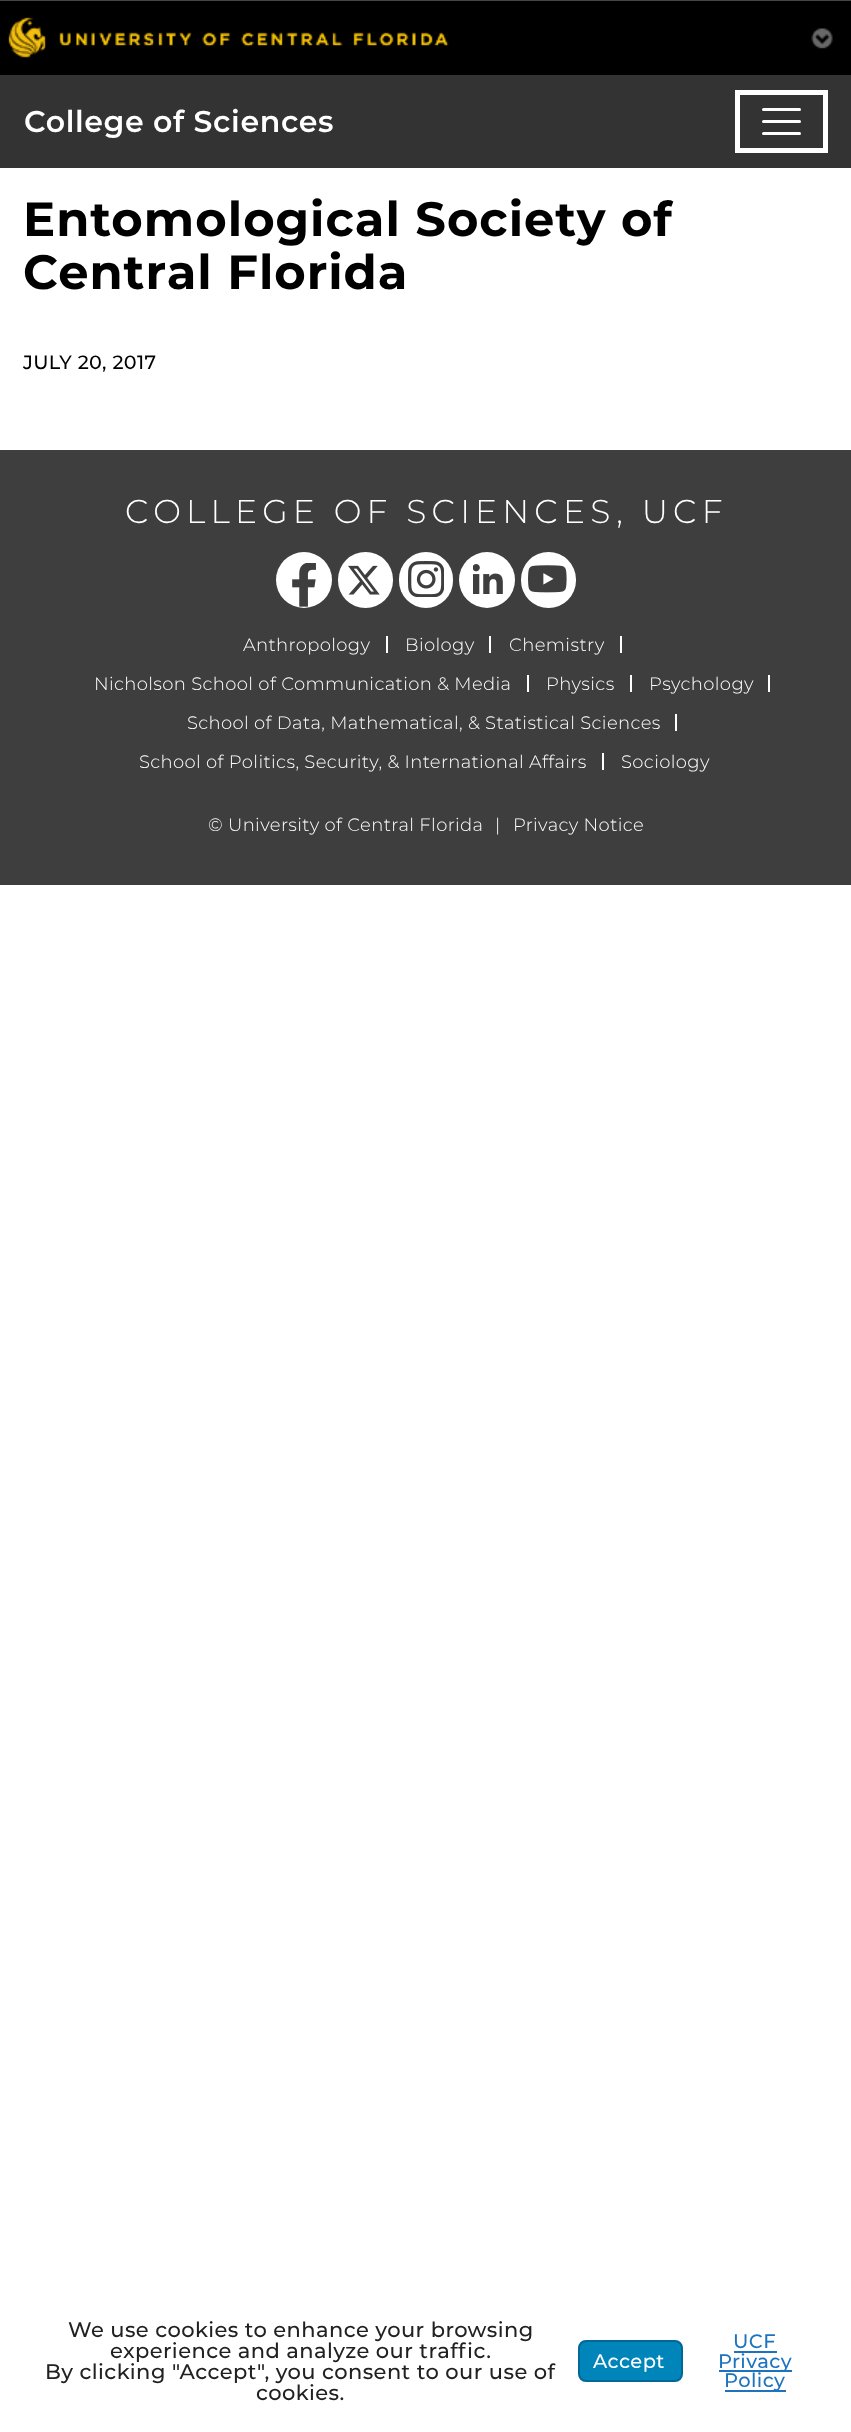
<!DOCTYPE html>
<meta charset="utf-8">
<style>body { margin: 0 } canvas { display: block }</style>
<canvas id="canvas" width="851" height="2432"></canvas>
<script type="module">
  const canvas = document.getElementById("canvas");
  const g = canvas.getContext("2d");
  g.miterLimit = 4;
  g.fontKerning = "normal";
  function drawText(s, x, y, [font, color]) {
    g.font = font;
    g.fillStyle = color;
    g.fillText(s, x, y);
  }
  function fillBox(x, y, w, h, color) {
    g.fillStyle = color;
    g.fillRect(x, y, w, h);
  }
  function fillRounded(x, y, w, h, r, color) {
    g.fillStyle = color;
    g.beginPath();
    g.roundRect(x, y, w, h, r);
    g.fill();
  }
  async function drawPicture(src, x, y, w, h) {
    const img = new Image();
    img.src = src;
    await img.decode();
    g.drawImage(img, x, y, w, h);
  }

  const s1 = ["600 30px Montserrat", "#FFFFFF"];
  const s2 = ["bold 48px Montserrat", "#000000"];
  const s3 = ["500 19.25px Montserrat", "#000000"];
  const s4 = ["300 33px Montserrat", "#FFFFFF"];
  const s5 = ["300 18px Montserrat", "#FFFFFF"];
  const s6 = ["500 21px Montserrat", "#212121"];
  const s7 = ["500 19.5px Montserrat", "#FFFFFF"];
  const s8 = ["500 19.5px Montserrat", "#1E73BE"];

  fillBox(0, 0, 851, 2432, "#FFFFFF");
  fillBox(0, 1, 851, 74, "#000000");
  fillBox(0, 0, 851, 1, "#454545");
  await drawPicture("pic1.png", 8, 17, 441, 41);
  await drawPicture("pic2.png", 811, 28, 22, 21);
  fillBox(0, 75, 851, 93, "#333333");
  drawText("College of Sciences", 24, 132, s1);
  g.strokeStyle = "#FFFFFF";
  g.lineWidth = 5;
  g.strokeRect(737.5, 92.5, 88, 58);
  g.beginPath();
  g.moveTo(763.5, 109.5);
  g.lineTo(799.5, 109.5);
  g.moveTo(763.5, 121.5);
  g.lineTo(799.5, 121.5);
  g.moveTo(763.5, 133.5);
  g.lineTo(799.5, 133.5);
  g.lineWidth = 3;
  g.lineCap = "round";
  g.stroke();
  drawText("Entomological Society of", 23, 236, s2);
  drawText("Central Florida", 23, 289, s2);
  drawText("JULY 20, 2017", 23, 369, s3);
  fillBox(0, 450, 851, 435, "#3E3E3E");
  g.letterSpacing = "4.5px";
  drawText("COLLEGE OF SCIENCES, UCF", 125, 523, s4);
  g.beginPath();
  g.arc(304, 580, 28, 0, Math.PI * 2);
  g.fill();
  await drawPicture("pic3.png", 292, 563, 24, 44);
  fillRounded(338, 552, 55, 56, 27.5, "#FFFFFF");
  await drawPicture("pic4.png", 348, 565, 32, 30);
  fillRounded(399, 552, 54, 56, 27, "#FFFFFF");
  await drawPicture("pic5.png", 408, 561, 36, 36);
  g.beginPath();
  g.arc(487, 580, 28, 0, Math.PI * 2);
  g.fill();
  await drawPicture("pic6.png", 473, 564, 30, 30);
  fillRounded(521, 552, 55, 56, 27.5, "#FFFFFF");
  await drawPicture("pic7.png", 528, 565, 39, 28);
  fillBox(386, 636, 2, 17, "#FFFFFF");
  g.letterSpacing = "0px";
  drawText("Anthropology", 243, 651, s5);
  fillBox(489, 636, 2, 17, "#FFFFFF");
  drawText("Biology", 405, 651, s5);
  fillBox(620, 636, 2, 17, "#FFFFFF");
  drawText("Chemistry", 509, 651, s5);
  fillBox(527, 675, 2, 17, "#FFFFFF");
  drawText("Nicholson School of Communication & Media", 94, 690, s5);
  fillBox(630, 675, 2, 17, "#FFFFFF");
  drawText("Physics", 546, 690, s5);
  fillBox(768, 675, 2, 17, "#FFFFFF");
  drawText("Psychology", 649, 690, s5);
  fillBox(675, 714, 2, 17, "#FFFFFF");
  drawText("School of Data, Mathematical, & Statistical Sciences", 187, 729, s5);
  fillBox(602, 753, 2, 17, "#FFFFFF");
  drawText("School of Politics, Security, & International Affairs", 139, 768, s5);
  drawText("Sociology", 621, 768, s5);
  drawText("© University of Central Florida", 208, 831, s5);
  drawText("|", 495, 831, s5);
  drawText("Privacy Notice", 513, 831, s5);
  drawText("We use cookies to enhance your browsing", 68, 2337, s6);
  drawText("experience and analyze our traffic.", 110, 2358, s6);
  drawText("By clicking \"Accept\", you consent to our use of", 45, 2379, s6);
  drawText("cookies.", 256, 2400, s6);
  g.fillStyle = "#0085BA";
  g.beginPath();
  g.roundRect(579, 2341, 103, 40, 7);
  g.fill();
  g.strokeStyle = "#006799";
  g.lineWidth = 2;
  g.stroke();
  drawText("Accept", 593, 2368, s7);
  drawText("UCF", 733, 2348, s8);
  fillBox(734, 2351, 43, 2, "#1E73BE");
  fillBox(719, 2370, 73, 2, "#1E73BE");
  drawText("Privacy", 718, 2368, s8);
  fillBox(725, 2390, 61, 2, "#1E73BE");
  drawText("Policy", 724, 2387, s8);
</script>
